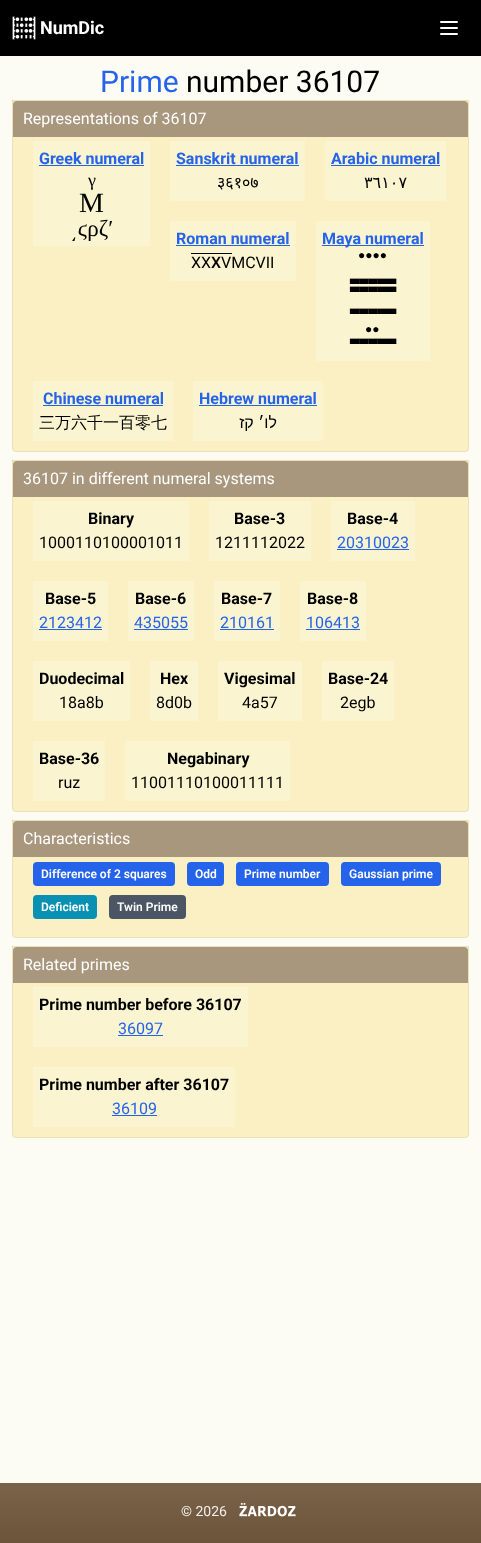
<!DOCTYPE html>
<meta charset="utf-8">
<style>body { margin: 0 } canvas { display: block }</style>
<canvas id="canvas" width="481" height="1543"></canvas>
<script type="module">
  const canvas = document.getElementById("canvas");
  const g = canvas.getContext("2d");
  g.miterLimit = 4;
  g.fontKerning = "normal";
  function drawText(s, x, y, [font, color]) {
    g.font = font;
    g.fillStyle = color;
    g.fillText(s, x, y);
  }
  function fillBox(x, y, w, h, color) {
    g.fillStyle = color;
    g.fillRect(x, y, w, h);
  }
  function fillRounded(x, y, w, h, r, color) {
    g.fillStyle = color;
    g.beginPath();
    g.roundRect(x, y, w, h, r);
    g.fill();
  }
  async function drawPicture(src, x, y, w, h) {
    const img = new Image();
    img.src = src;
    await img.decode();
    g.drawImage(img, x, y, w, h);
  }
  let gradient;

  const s1 = ["bold 18px Roboto", "#FFFFFF"];
  const s2 = ["30px Roboto", "#2563EB"];
  const s3 = ["30px Roboto", "#000000"];
  const s4 = ["16px Roboto", "#FFFFFF"];
  const s5 = ["bold 16px Roboto", "#2563EB"];
  const s6 = ["18px Liberation Serif", "#000000"];
  const s7 = ["28px Liberation Serif", "#000000"];
  const s8 = ["23px Liberation Serif", "#000000"];
  const s9 = ["16px Noto Sans", "#000000"];
  const s10 = ["16px DejaVu Sans", "#000000"];
  const s11 = ["16px Roboto", "#000000"];
  const s12 = ["500 16px Roboto", "#000000"];
  const s13 = ["12px Liberation Sans", "#000000"];
  const s14 = ["12px DejaVu Sans", "#000000"];
  const s15 = ["500 16px WenQuanYi Zen Hei", "#000000"];
  const s16 = ["16px Liberation Sans", "#000000"];
  const s17 = ["bold 16px Roboto", "#000000"];
  const s18 = ["16px Roboto", "#2563EB"];
  const s19 = ["600 12px Roboto", "#FFFFFF"];
  const s20 = ["14px Roboto", "#F1EFEC"];

  fillBox(0, 0, 481, 1543, "#FCFBF4");
  fillBox(0, 0, 481, 56, "#000000");
  await drawPicture("pic1.png", 12, 16, 24, 24);
  drawText("NumDic", 40, 34, s1);
  g.beginPath();
  g.moveTo(441, 22);
  g.lineTo(457, 22);
  g.moveTo(441, 28);
  g.lineTo(457, 28);
  g.moveTo(441, 34);
  g.lineTo(457, 34);
  g.strokeStyle = "#FFFFFF";
  g.lineWidth = 2;
  g.lineCap = "round";
  g.lineJoin = "round";
  g.stroke();
  drawText("Prime", 100, 92, s2);
  drawText("number 36107", 186, 92, s3);
  g.fillStyle = "#FAF0C4";
  g.beginPath();
  g.roundRect(12, 100, 457, 352, [0, 0, 4, 4]);
  g.fill();
  g.beginPath();
  g.roundRect(12.5, 100.5, 456, 351, [0, 0, 3.5, 3.5]);
  g.strokeStyle = "rgba(157, 138, 114, 0.15)";
  g.lineWidth = 1;
  g.lineJoin = "miter";
  g.stroke();
  g.fillStyle = "#A8967D";
  g.beginPath();
  g.roundRect(13, 101, 455, 36, [4, 4, 0, 0]);
  g.fill();
  drawText("Representations of 36107", 23, 124, s4);
  fillBox(33, 141, 117, 105, "#FAF5D0");
  drawText("Greek numeral", 39, 164, s5);
  fillBox(39, 165, 105, 1, "#2563EB");
  drawText("γ", 88, 186, s6);
  drawText("Μ", 79, 212, s7);
  drawText("͵ϛρζʹ", 70, 236, s8);
  fillBox(170, 141, 135, 60, "#FAF5D0");
  drawText("Sanskrit numeral", 176, 164, s5);
  fillBox(176, 165, 123, 1, "#2563EB");
  drawText("३६१०७", 217, 188, s9);
  fillBox(325, 141, 121, 60, "#FAF5D0");
  drawText("Arabic numeral", 331, 164, s5);
  fillBox(331, 165, 109, 1, "#2563EB");
  drawText("٣٦١٠٧", 364, 188, s10);
  fillBox(170, 221, 126, 60, "#FAF5D0");
  drawText("Roman numeral", 176, 244, s5);
  fillBox(176, 245, 114, 1, "#2563EB");
  drawText("XX", 191, 268, s11);
  fillBox(191, 253, 41, 1, "#000000");
  drawText("X", 211, 268, s12);
  drawText("VMCVII", 221, 268, s11);
  fillBox(316, 221, 114, 140, "#FAF5D0");
  fillBox(322, 245, 102, 1, "#2563EB");
  drawText("Maya numeral", 322, 244, s5);
  drawText("●●●●", 358, 259, s13);
  drawText("▃▃▃▃▃", 350, 281, s14);
  drawText("▃▃▃▃▃", 350, 289, s14);
  drawText("▃▃▃▃▃", 350, 311, s14);
  drawText("●●", 365, 333, s13);
  drawText("▃▃▃▃▃", 350, 341, s14);
  fillBox(33, 381, 140, 60, "#FAF5D0");
  drawText("Chinese numeral", 43, 404, s5);
  fillBox(43, 405, 120, 1, "#2563EB");
  drawText("三万六千一百零七", 39, 428, s15);
  fillBox(193, 381, 130, 60, "#FAF5D0");
  drawText("Hebrew numeral", 199, 404, s5);
  fillBox(199, 405, 118, 1, "#2563EB");
  g.direction = "rtl";
  drawText("לו׳ קז", 277, 428, s16);
  g.fillStyle = "#FAF0C4";
  g.beginPath();
  g.roundRect(12, 460, 457, 352, [0, 0, 4, 4]);
  g.fill();
  g.beginPath();
  g.roundRect(12.5, 460.5, 456, 351, [0, 0, 3.5, 3.5]);
  g.stroke();
  g.fillStyle = "#A8967D";
  g.beginPath();
  g.roundRect(13, 461, 455, 36, [4, 4, 0, 0]);
  g.fill();
  g.direction = "ltr";
  drawText("36107 in different numeral systems", 23, 484, s4);
  fillBox(33, 501, 156, 60, "#FAF5D0");
  drawText("Binary", 88, 524, s17);
  drawText("1000110100001011", 39, 548, s11);
  fillBox(209, 501, 102, 60, "#FAF5D0");
  drawText("Base-3", 234, 524, s17);
  drawText("1211112022", 215, 548, s11);
  fillBox(331, 501, 84, 60, "#FAF5D0");
  drawText("Base-4", 347, 524, s17);
  drawText("20310023", 337, 548, s18);
  fillBox(337, 549, 72, 1, "#2563EB");
  fillBox(33, 581, 75, 60, "#FAF5D0");
  drawText("Base-5", 45, 604, s17);
  drawText("2123412", 39, 628, s18);
  fillBox(39, 629, 63, 1, "#2563EB");
  fillBox(128, 581, 66, 60, "#FAF5D0");
  drawText("Base-6", 135, 604, s17);
  drawText("435055", 134, 628, s18);
  fillBox(134, 629, 54, 1, "#2563EB");
  fillBox(214, 581, 66, 60, "#FAF5D0");
  drawText("Base-7", 221, 604, s17);
  drawText("210161", 220, 628, s18);
  fillBox(220, 629, 54, 1, "#2563EB");
  fillBox(300, 581, 66, 60, "#FAF5D0");
  drawText("Base-8", 307, 604, s17);
  drawText("106413", 306, 628, s18);
  fillBox(306, 629, 54, 1, "#2563EB");
  fillBox(33, 661, 97, 60, "#FAF5D0");
  drawText("Duodecimal", 39, 684, s17);
  drawText("18a8b", 59, 708, s11);
  fillBox(150, 661, 48, 60, "#FAF5D0");
  drawText("Hex", 160, 684, s17);
  drawText("8d0b", 156, 708, s11);
  fillBox(218, 661, 84, 60, "#FAF5D0");
  drawText("Vigesimal", 224, 684, s17);
  drawText("4a57", 242, 708, s11);
  fillBox(322, 661, 72, 60, "#FAF5D0");
  drawText("Base-24", 328, 684, s17);
  drawText("2egb", 340, 708, s11);
  fillBox(33, 741, 72, 60, "#FAF5D0");
  drawText("Base-36", 39, 764, s17);
  drawText("ruz", 58, 788, s11);
  fillBox(125, 741, 165, 60, "#FAF5D0");
  drawText("Negabinary", 167, 764, s17);
  drawText("11001110100011111", 131, 788, s11);
  g.fillStyle = "#FAF0C4";
  g.beginPath();
  g.roundRect(12, 820, 457, 118, [0, 0, 4, 4]);
  g.fill();
  g.beginPath();
  g.roundRect(12.5, 820.5, 456, 117, [0, 0, 3.5, 3.5]);
  g.stroke();
  g.fillStyle = "#A8967D";
  g.beginPath();
  g.roundRect(13, 821, 455, 36, [4, 4, 0, 0]);
  g.fill();
  drawText("Characteristics", 23, 844, s4);
  fillRounded(33, 862, 142, 24, 4, "#2563EB");
  drawText("Difference of 2 squares", 41, 878, s19);
  fillRounded(187, 862, 37, 24, 4, "#2563EB");
  drawText("Odd", 195, 878, s19);
  fillRounded(236, 862, 93, 24, 4, "#2563EB");
  drawText("Prime number", 244, 878, s19);
  fillRounded(341, 862, 100, 24, 4, "#2563EB");
  drawText("Gaussian prime", 349, 878, s19);
  fillRounded(33, 895, 64, 24, 4, "#0891B2");
  drawText("Deficient", 41, 911, s19);
  fillRounded(109, 895, 77, 24, 4, "#4B5563");
  drawText("Twin Prime", 117, 911, s19);
  g.fillStyle = "#FAF0C4";
  g.beginPath();
  g.roundRect(12, 946, 457, 192, [0, 0, 4, 4]);
  g.fill();
  g.beginPath();
  g.roundRect(12.5, 946.5, 456, 191, [0, 0, 3.5, 3.5]);
  g.stroke();
  g.fillStyle = "#A8967D";
  g.beginPath();
  g.roundRect(13, 947, 455, 36, [4, 4, 0, 0]);
  g.fill();
  drawText("Related primes", 23, 970, s4);
  fillBox(33, 987, 215, 60, "#FAF5D0");
  drawText("Prime number before 36107", 39, 1010, s17);
  drawText("36097", 118, 1034, s18);
  fillBox(118, 1035, 45, 1, "#2563EB");
  fillBox(33, 1067, 202, 60, "#FAF5D0");
  drawText("Prime number after 36107", 39, 1090, s17);
  drawText("36109", 112, 1114, s18);
  fillBox(112, 1115, 45, 1, "#2563EB");
  gradient = g.createLinearGradient(241, 1483, 241, 1543);
  gradient.addColorStop(0, "#7A6349");
  gradient.addColorStop(1, "#6B5439");
  g.fillStyle = gradient;
  g.fillRect(0, 1483, 481, 60);
  drawText("© 2026", 181, 1516, s20);
  await drawPicture("pic2.png", 239, 1502, 57, 15);
</script>
